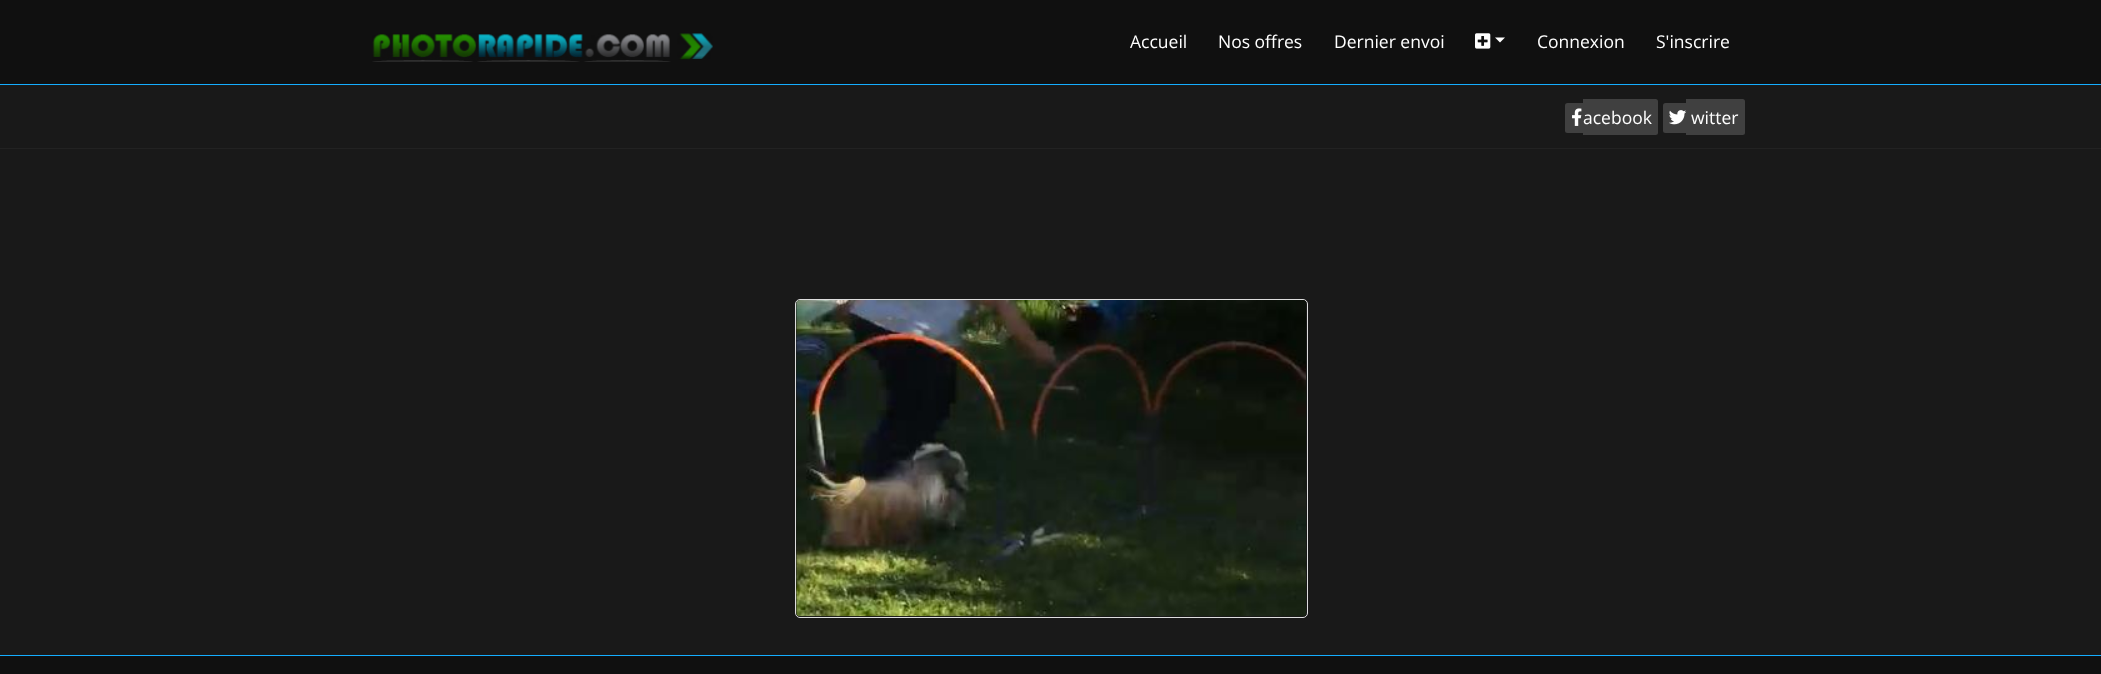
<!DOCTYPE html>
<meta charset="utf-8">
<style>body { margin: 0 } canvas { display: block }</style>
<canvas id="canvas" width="2101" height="674"></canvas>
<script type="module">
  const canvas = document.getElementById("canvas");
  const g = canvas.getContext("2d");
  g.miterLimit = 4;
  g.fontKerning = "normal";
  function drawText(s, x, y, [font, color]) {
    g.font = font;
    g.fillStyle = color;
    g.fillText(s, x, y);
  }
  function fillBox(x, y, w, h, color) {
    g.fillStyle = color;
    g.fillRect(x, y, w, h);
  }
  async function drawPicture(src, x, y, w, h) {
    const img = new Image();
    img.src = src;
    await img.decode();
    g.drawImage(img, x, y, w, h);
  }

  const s1 = ["17.5px Open Sans", "#FFFFFF"];

  fillBox(0, 0, 2101, 674, "#191919");
  fillBox(0, 0, 2101, 84, "#101010");
  fillBox(0, 84, 2101, 1, "#15ADFF");
  await drawPicture("pic1.png", 372, 33, 341, 29);
  drawText("Accueil", 1130, 48, s1);
  drawText("Nos offres", 1218, 48, s1);
  drawText("Dernier envoi", 1334, 48, s1);
  await drawPicture("pic2.png", 1475, 33, 16, 16);
  g.beginPath();
  g.moveTo(1495, 37.5);
  g.lineTo(1505, 37.5);
  g.lineTo(1500, 42.5);
  g.closePath();
  g.fill();
  drawText("Connexion", 1537, 48, s1);
  drawText("S'inscrire", 1656, 48, s1);
  fillBox(0, 148, 2101, 1, "#222222");
  g.fillStyle = "#404040";
  g.beginPath();
  g.roundRect(1565, 103, 18, 30, [2.5, 0, 0, 2.5]);
  g.fill();
  g.beginPath();
  g.roundRect(1583, 99, 75, 36, [0, 2.5, 2.5, 0]);
  g.fill();
  await drawPicture("pic3.png", 1572, 108, 10, 18);
  drawText("acebook", 1583, 124, s1);
  g.fillStyle = "#404040";
  g.beginPath();
  g.roundRect(1663, 103, 23, 30, [2.5, 0, 0, 2.5]);
  g.fill();
  g.beginPath();
  g.roundRect(1686, 99, 59, 36, [0, 2.5, 2.5, 0]);
  g.fill();
  await drawPicture("pic4.png", 1669, 110, 18, 15);
  drawText("witter", 1691, 124, s1);
  g.beginPath();
  g.roundRect(795.5, 299.5, 512, 318, 4.5);
  g.strokeStyle = "#DDDDDD";
  g.stroke();
  await drawPicture("pic5.png", 796, 300, 510, 317);
  fillBox(0, 656, 2101, 18, "#101010");
  fillBox(0, 655, 2101, 1, "#15ADFF");
</script>
